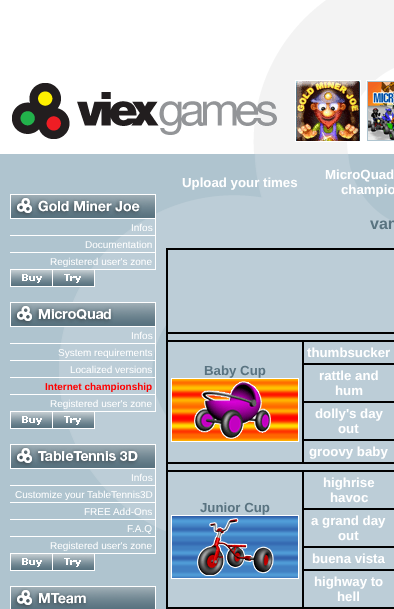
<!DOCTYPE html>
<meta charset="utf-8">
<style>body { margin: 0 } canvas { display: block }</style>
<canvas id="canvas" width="394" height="609"></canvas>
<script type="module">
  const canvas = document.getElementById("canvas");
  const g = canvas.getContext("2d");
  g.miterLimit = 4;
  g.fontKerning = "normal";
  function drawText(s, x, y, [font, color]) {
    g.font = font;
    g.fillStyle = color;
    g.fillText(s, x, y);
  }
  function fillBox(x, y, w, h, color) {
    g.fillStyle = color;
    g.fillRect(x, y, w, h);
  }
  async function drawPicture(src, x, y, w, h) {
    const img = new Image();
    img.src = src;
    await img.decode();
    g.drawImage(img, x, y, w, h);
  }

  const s1 = ["10px Liberation Sans", "#FFFFFF"];
  const s2 = ["bold 10px Liberation Sans", "#FF0000"];
  const s3 = ["bold 13.25px Liberation Sans", "#FFFFFF"];
  const s4 = ["bold 16px Liberation Sans", "#597380"];
  const s5 = ["bold 13.25px Liberation Sans", "#597380"];

  fillBox(0, 0, 394, 609, "#FFFFFF");
  await drawPicture("pic1.png", 253, 0, 141, 154);
  await drawPicture("pic2.png", 12, 83, 265, 56);
  g.strokeStyle = "#FFFFFF";
  g.strokeRect(295.5, 80.5, 65, 61);
  await drawPicture("pic3.png", 296, 81, 64, 60);
  g.strokeRect(366.5, 80.5, 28, 61);
  await drawPicture("pic4.png", 367, 81, 27, 60);
  await drawPicture("pic5.png", 0, 154, 394, 455);
  await drawPicture("pic6.png", 10, 194, 146, 25);
  fillBox(155, 219, 1, 51, "#FFFFFF");
  drawText("Infos", 131, 231, s1);
  fillBox(10, 235, 145, 1, "#FFFFFF");
  drawText("Documentation", 85, 248, s1);
  fillBox(10, 252, 145, 1, "#FFFFFF");
  drawText("Registered user's zone", 50, 265, s1);
  fillBox(10, 269, 145, 1, "#FFFFFF");
  await drawPicture("pic7.png", 10, 270, 43, 17);
  await drawPicture("pic8.png", 53, 270, 42, 17);
  await drawPicture("pic9.png", 10, 302, 146, 25);
  fillBox(155, 327, 1, 85, "#FFFFFF");
  drawText("Infos", 131, 339, s1);
  fillBox(10, 343, 145, 1, "#FFFFFF");
  drawText("System requirements", 58, 356, s1);
  fillBox(10, 360, 145, 1, "#FFFFFF");
  drawText("Localized versions", 70, 373, s1);
  fillBox(10, 377, 145, 1, "#FFFFFF");
  drawText("Internet championship", 45, 390, s2);
  fillBox(10, 394, 145, 1, "#FFFFFF");
  drawText("Registered user's zone", 50, 407, s1);
  fillBox(10, 411, 145, 1, "#FFFFFF");
  await drawPicture("pic7.png", 10, 412, 43, 17);
  await drawPicture("pic8.png", 53, 412, 42, 17);
  await drawPicture("pic10.png", 10, 444, 146, 25);
  fillBox(155, 469, 1, 85, "#FFFFFF");
  drawText("Infos", 131, 481, s1);
  fillBox(10, 485, 145, 1, "#FFFFFF");
  drawText("Customize your TableTennis3D", 15, 498, s1);
  fillBox(10, 502, 145, 1, "#FFFFFF");
  drawText("FREE Add-Ons", 84, 515, s1);
  fillBox(10, 519, 145, 1, "#FFFFFF");
  drawText("F.A.Q", 127, 532, s1);
  fillBox(10, 536, 145, 1, "#FFFFFF");
  drawText("Registered user's zone", 50, 549, s1);
  fillBox(10, 553, 145, 1, "#FFFFFF");
  await drawPicture("pic7.png", 10, 554, 43, 17);
  await drawPicture("pic8.png", 53, 554, 42, 17);
  await drawPicture("pic11.png", 10, 586, 146, 23);
  drawText("Upload your times", 182, 187, s3);
  drawText("MicroQuad", 325, 179, s3);
  drawText("champio", 341, 194, s3);
  drawText("van", 370, 229, s4);
  fillBox(168, 288, 226, 319, "#BCCDD7");
  g.strokeStyle = "#000000";
  g.strokeRect(166.5, 248.5, 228, 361);
  g.strokeRect(167.5, 249.5, 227, 83);
  g.strokeRect(167.5, 333.5, 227, 7);
  g.strokeRect(303.5, 341.5, 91, 22);
  drawText("thumbsucker", 307, 357, s3);
  g.strokeRect(167.5, 341.5, 135, 121);
  drawText("Baby Cup", 204, 375, s5);
  await drawPicture("pic12.png", 171, 378, 128, 64);
  g.strokeRect(303.5, 364.5, 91, 37);
  drawText("rattle and", 319, 380, s3);
  drawText("hum", 335, 395, s3);
  g.strokeRect(303.5, 402.5, 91, 37);
  drawText("dolly's day", 315, 418, s3);
  drawText("out", 338, 433, s3);
  g.strokeRect(303.5, 440.5, 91, 22);
  drawText("groovy baby", 309, 456, s3);
  g.strokeRect(167.5, 463.5, 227, 7);
  g.strokeRect(303.5, 471.5, 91, 37);
  drawText("highrise", 323, 487, s3);
  drawText("havoc", 330, 502, s3);
  g.strokeRect(167.5, 471.5, 135, 136);
  drawText("Junior Cup", 200, 512, s5);
  await drawPicture("pic13.png", 171, 515, 128, 64);
  g.strokeRect(303.5, 509.5, 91, 37);
  drawText("a grand day", 311, 525, s3);
  drawText("out", 338, 540, s3);
  g.strokeRect(303.5, 547.5, 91, 22);
  drawText("buena vista", 312, 563, s3);
  g.strokeRect(303.5, 570.5, 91, 37);
  drawText("highway to", 314, 586, s3);
  drawText("hell", 337, 601, s3);
  g.strokeRect(167.5, 608.5, 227, 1);
</script>
